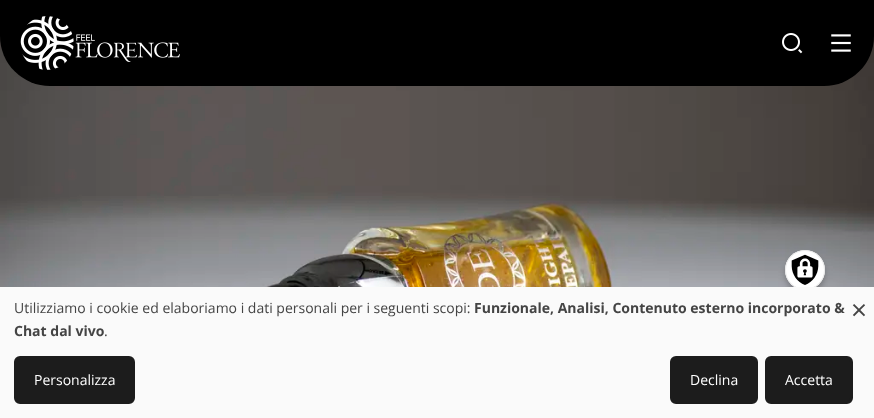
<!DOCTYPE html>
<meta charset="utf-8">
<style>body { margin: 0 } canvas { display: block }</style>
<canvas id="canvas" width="874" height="418"></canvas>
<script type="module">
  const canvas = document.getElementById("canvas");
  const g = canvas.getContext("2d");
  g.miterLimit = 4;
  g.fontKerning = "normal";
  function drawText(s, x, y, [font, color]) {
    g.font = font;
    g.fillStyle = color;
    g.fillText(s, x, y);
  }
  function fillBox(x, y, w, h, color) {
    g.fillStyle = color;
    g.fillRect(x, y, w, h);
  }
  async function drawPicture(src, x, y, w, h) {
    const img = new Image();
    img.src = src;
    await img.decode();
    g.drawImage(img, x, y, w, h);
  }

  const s1 = ["14px Open Sans", "#444444"];
  const s2 = ["bold 14px Open Sans", "#444444"];
  const s3 = ["14px Open Sans", "#FFFFFF"];
  const s4 = ["28px Open Sans", "#444444"];

  fillBox(0, 0, 874, 418, "#FFFFFF");
  await drawPicture("pic4.png", 0, 36, 874, 251);
  g.fillStyle = "#000000";
  g.beginPath();
  g.roundRect(0, 0, 874, 86, [0, 0, 50, 50]);
  g.fill();
  await drawPicture("pic1.png", 20, 16, 160, 54);
  await drawPicture("pic2.png", 782, 33, 21, 21);
  await drawPicture("pic3.png", 831, 34, 20, 18);
  g.fillStyle = "rgba(0, 0, 0, 0.2)";
  g.filter = "blur(2.5px)";
  g.beginPath();
  g.roundRect(785, 255, 40, 40, 20);
  g.fill();
  g.filter = "none";
  g.fillStyle = "#FFFFFF";
  g.beginPath();
  g.arc(805, 270, 20, 0, Math.PI * 2);
  g.fill();
  await drawPicture("pic5.png", 791, 254, 28, 31);
  g.beginPath();
  g.arc(805, 270, 19.5, 0, Math.PI * 2);
  g.strokeStyle = "#EAEAEA";
  g.stroke();
  fillBox(0, 287, 874, 131, "#FAFAFA");
  drawText("Utilizziamo i cookie ed elaboriamo i dati personali per i seguenti scopi:", 14, 313, s1);
  drawText("Funzionale, Analisi, Contenuto esterno incorporato &", 474, 313, s2);
  drawText("Chat dal vivo", 14, 336, s2);
  drawText(".", 104, 336, s1);
  g.fillStyle = "#1C1C1C";
  g.beginPath();
  g.roundRect(15.5, 357.5, 118, 45, 4.5);
  g.fill();
  g.strokeStyle = "#1C1C1C";
  g.lineWidth = 3;
  g.stroke();
  drawText("Personalizza", 34, 385, s3);
  g.fillStyle = "#1C1C1C";
  g.beginPath();
  g.roundRect(671.5, 357.5, 85, 45, 4.5);
  g.fill();
  g.stroke();
  drawText("Declina", 690, 385, s3);
  g.fillStyle = "#1C1C1C";
  g.beginPath();
  g.roundRect(766.5, 357.5, 85, 45, 4.5);
  g.fill();
  g.stroke();
  drawText("Accetta", 785, 385, s3);
  drawText("×", 851, 320, s4);
</script>
